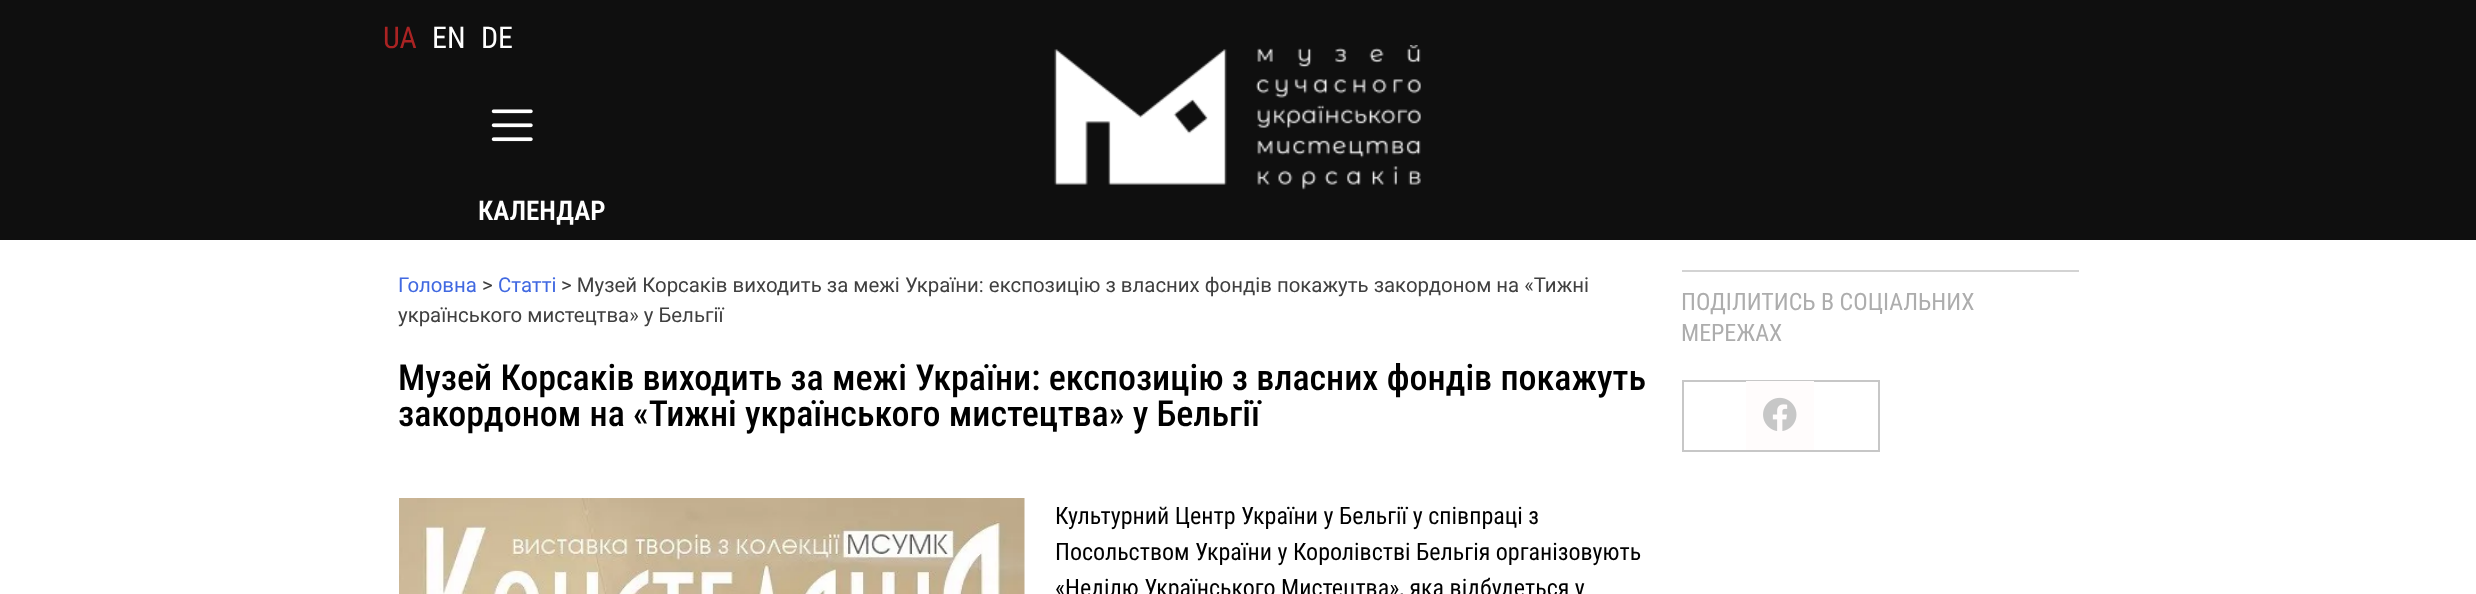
<!DOCTYPE html>
<meta charset="utf-8">
<style>body { margin: 0 } canvas { display: block }</style>
<canvas id="canvas" width="2476" height="594"></canvas>
<script type="module">
  const canvas = document.getElementById("canvas");
  const g = canvas.getContext("2d");
  g.miterLimit = 4;
  g.fontKerning = "normal";
  function drawText(s, x, y, [font, color]) {
    g.font = font;
    g.fillStyle = color;
    g.fillText(s, x, y);
  }
  function fillBox(x, y, w, h, color) {
    g.fillStyle = color;
    g.fillRect(x, y, w, h);
  }
  async function drawPicture(src, x, y, w, h) {
    const img = new Image();
    img.src = src;
    await img.decode();
    g.drawImage(img, x, y, w, h);
  }

  const s1 = ["30px Roboto Condensed", "#AA2323"];
  const s2 = ["30px Roboto Condensed", "#FFFFFF"];
  const s3 = ["600 27px Roboto Condensed", "#FFFFFF"];
  const s4 = ["20.4px Roboto", "#4169E1"];
  const s5 = ["20.4px Roboto", "#404040"];
  const s6 = ["500 36px Roboto Condensed", "#000000"];
  const s7 = ["24px Roboto Condensed", "#000000"];
  const s8 = ["24px Roboto Condensed", "#ADADAD"];

  fillBox(0, 0, 2476, 594, "#FFFFFF");
  fillBox(0, 0, 2476, 240, "#0F0F0F");
  drawText("UA", 383, 48, s1);
  drawText("EN", 432, 48, s2);
  drawText("DE", 481, 48, s2);
  await drawPicture("pic1.png", 491, 109, 42, 33);
  drawText("КАЛЕНДАР", 478, 220, s3);
  await drawPicture("pic2.png", 1054, 45, 367, 145);
  drawText("Головна", 398, 292, s4);
  drawText(">", 482, 292, s5);
  drawText("Статті", 498, 292, s4);
  drawText("> Музей Корсаків виходить за межі України: експозицію з власних фондів покажуть закордоном на «Тижні", 561, 292, s5);
  drawText("українського мистецтва» у Бельгії", 398, 322, s5);
  drawText("Музей Корсаків виходить за межі України: експозицію з власних фондів покажуть", 398, 390, s6);
  drawText("закордоном на «Тижні українського мистецтва» у Бельгії", 398, 426, s6);
  await drawPicture("pic3.png", 399, 498, 626, 96);
  drawText("Культурний Центр України у Бельгії у співпраці з", 1055, 524, s7);
  drawText("Посольством України у Королівстві Бельгія організовують", 1055, 560, s7);
  drawText("«Неділю Українського Мистецтва», яка відбудеться у", 1055, 596, s7);
  fillBox(1682, 270, 397, 2, "#D3D3D3");
  drawText("ПОДІЛИТИСЬ В СОЦІАЛЬНИХ", 1681, 310, s8);
  drawText("МЕРЕЖАХ", 1681, 341, s8);
  g.strokeStyle = "#C7C7C7";
  g.lineWidth = 2;
  g.strokeRect(1683, 381, 196, 70);
  fillBox(1746, 381, 68, 69, "#FFFCFC");
  await drawPicture("pic4.png", 1763, 397, 34, 34);
</script>
